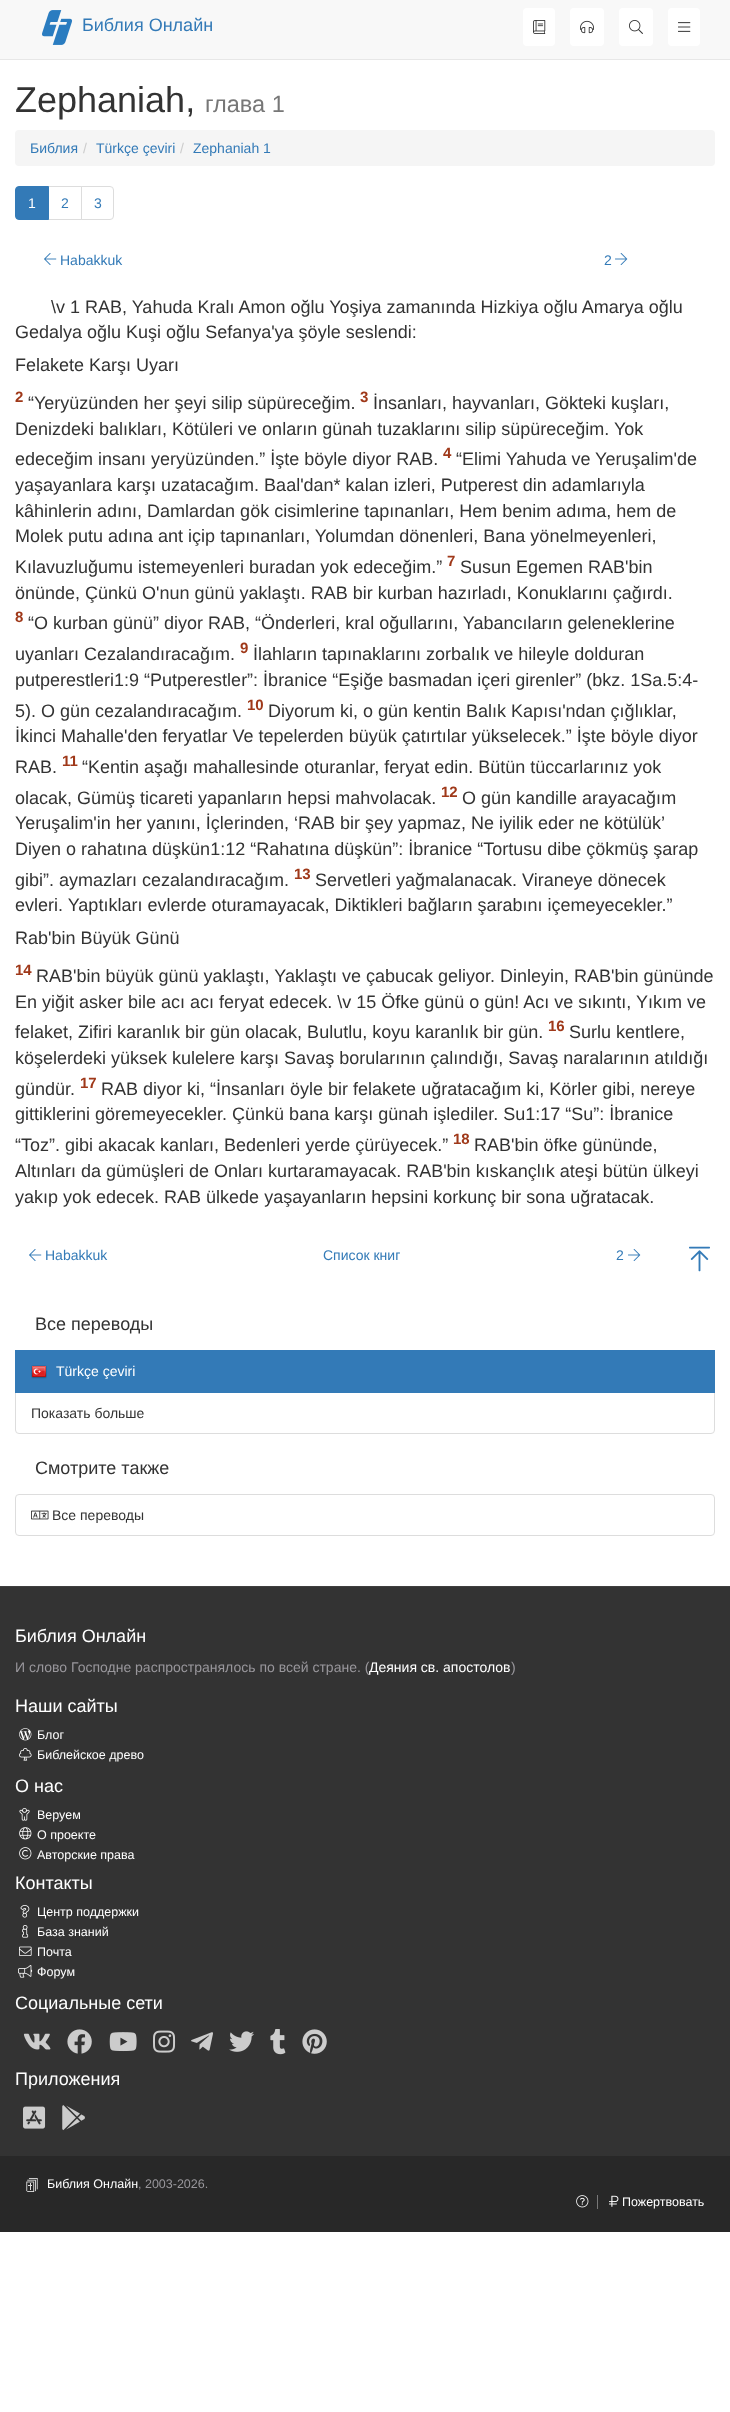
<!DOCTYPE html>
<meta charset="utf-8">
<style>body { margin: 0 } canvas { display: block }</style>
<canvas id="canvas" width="730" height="2412"></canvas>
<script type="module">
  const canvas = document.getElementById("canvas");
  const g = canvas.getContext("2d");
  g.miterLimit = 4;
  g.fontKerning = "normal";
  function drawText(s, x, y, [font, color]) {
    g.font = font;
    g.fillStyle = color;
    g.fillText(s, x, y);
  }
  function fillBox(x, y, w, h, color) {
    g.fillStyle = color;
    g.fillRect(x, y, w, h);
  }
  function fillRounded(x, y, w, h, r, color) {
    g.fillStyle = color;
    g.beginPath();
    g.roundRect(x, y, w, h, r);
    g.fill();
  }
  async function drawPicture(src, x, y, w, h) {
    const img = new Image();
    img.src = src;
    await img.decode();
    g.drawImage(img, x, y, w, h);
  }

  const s1 = ["18px Liberation Sans", "#337AB7"];
  const s2 = ["36px Liberation Sans", "#333333"];
  const s3 = ["23.5px Liberation Sans", "#777777"];
  const s4 = ["14px Liberation Sans", "#337AB7"];
  const s5 = ["14px Liberation Sans", "#CCCCCC"];
  const s6 = ["14px Liberation Sans", "#FFFFFF"];
  const s7 = ["18px Liberation Sans", "#333333"];
  const s8 = ["bold 15px Liberation Sans", "#9F3819"];
  const s9 = ["14px Liberation Sans", "#333333"];
  const s10 = ["18px Liberation Sans", "#FFFFFF"];
  const s11 = ["14px Liberation Sans", "#99979C"];
  const s12 = ["12.5px Liberation Sans", "#FFFFFF"];
  const s13 = ["12.5px Liberation Sans", "#99979C"];

  fillBox(0, 0, 730, 2412, "#FFFFFF");
  fillBox(0, 0, 730, 59, "#F8F8F8");
  fillBox(0, 59, 730, 1, "#E7E7E7");
  await drawPicture("pic1.png", 42, 10, 31, 35);
  drawText("Библия Онлайн", 82, 31, s1);
  fillRounded(523, 8, 32, 38, 4, "#FFFFFF");
  await drawPicture("pic2.png", 533, 20, 13, 14);
  fillRounded(570, 8, 34, 38, 4, "#FFFFFF");
  await drawPicture("pic3.png", 580, 20, 14, 14);
  fillRounded(619, 8, 34, 38, 4, "#FFFFFF");
  await drawPicture("pic4.png", 629, 20, 14, 14);
  fillRounded(668, 8, 32, 38, 4, "#FFFFFF");
  await drawPicture("pic5.png", 678, 22, 13, 10);
  drawText("Zephaniah,", 15, 112, s2);
  drawText("глава 1", 205, 112, s3);
  fillRounded(15, 130, 700, 36, 4, "#F5F5F5");
  drawText("Библия", 30, 153, s4);
  drawText("/", 83, 153, s5);
  drawText("Türkçe çeviri", 96, 153, s4);
  drawText("/", 180, 153, s5);
  drawText("Zephaniah 1", 193, 153, s4);
  g.strokeStyle = "#DDDDDD";
  g.strokeRect(48.5, 186.5, 33, 33);
  g.beginPath();
  g.roundRect(15.5, 186.5, 33, 33, [3.5, 0, 0, 3.5]);
  g.fill();
  g.strokeStyle = "#337AB7";
  g.stroke();
  drawText("1", 28, 208, s6);
  drawText("2", 61, 208, s4);
  g.fillStyle = "#FFFFFF";
  g.beginPath();
  g.roundRect(81.5, 186.5, 32, 33, [0, 3.5, 3.5, 0]);
  g.fill();
  g.strokeStyle = "#DDDDDD";
  g.stroke();
  drawText("3", 94, 208, s4);
  await drawPicture("pic6.png", 44, 253, 13, 12);
  drawText("Habakkuk", 60, 265, s4);
  drawText("2", 604, 265, s4);
  await drawPicture("pic7.png", 615, 253, 13, 12);
  drawText("\\v 1 RAB, Yahuda Kralı Amon oğlu Yoşiya zamanında Hizkiya oğlu Amarya oğlu", 51, 313, s7);
  drawText("Gedalya oğlu Kuşi oğlu Sefanya'ya şöyle seslendi:", 15, 338, s7);
  drawText("Felakete Karşı Uyarı", 15, 371, s7);
  drawText("2", 15, 402, s8);
  drawText("“Yeryüzünden her şeyi silip süpüreceğim.", 28, 409, s7);
  drawText("3", 360, 402, s8);
  drawText("İnsanları, hayvanları, Gökteki kuşları,", 373, 409, s7);
  drawText("Denizdeki balıkları, Kötüleri ve onların günah tuzaklarını silip süpüreceğim. Yok", 15, 435, s7);
  drawText("edeceğim insanı yeryüzünden.” İşte böyle diyor RAB.", 15, 465, s7);
  drawText("4", 443, 458, s8);
  drawText("“Elimi Yahuda ve Yeruşalim'de", 456, 465, s7);
  drawText("yaşayanlara karşı uzatacağım. Baal'dan* kalan izleri, Putperest din adamlarıyla", 15, 491, s7);
  drawText("kâhinlerin adını, Damlardan gök cisimlerine tapınanları, Hem benim adıma, hem de", 15, 517, s7);
  drawText("Molek putu adına ant içip tapınanları, Yolumdan dönenleri, Bana yönelmeyenleri,", 15, 542, s7);
  drawText("Kılavuzluğumu istemeyenleri buradan yok edeceğim.”", 15, 573, s7);
  drawText("7", 447, 566, s8);
  drawText("Susun Egemen RAB'bin", 460, 573, s7);
  drawText("önünde, Çünkü O'nun günü yaklaştı. RAB bir kurban hazırladı, Konuklarını çağırdı.", 15, 599, s7);
  drawText("8", 15, 622, s8);
  drawText("“O kurban günü” diyor RAB, “Önderleri, kral oğullarını, Yabancıların geleneklerine", 28, 629, s7);
  drawText("uyanları Cezalandıracağım.", 15, 660, s7);
  drawText("9", 240, 653, s8);
  drawText("İlahların tapınaklarını zorbalık ve hileyle dolduran", 253, 660, s7);
  drawText("putperestleri1:9 “Putperestler”: İbranice “Eşiğe basmadan içeri girenler” (bkz. 1Sa.5:4-", 15, 686, s7);
  drawText("5). O gün cezalandıracağım.", 15, 717, s7);
  drawText("10", 247, 710, s8);
  drawText("Diyorum ki, o gün kentin Balık Kapısı'ndan çığlıklar,", 268, 717, s7);
  drawText("İkinci Mahalle'den feryatlar Ve tepelerden büyük çatırtılar yükselecek.” İşte böyle diyor", 15, 742, s7);
  drawText("RAB.", 15, 773, s7);
  drawText("11", 62, 766, s8);
  drawText("“Kentin aşağı mahallesinde oturanlar, feryat edin. Bütün tüccarlarınız yok", 82, 773, s7);
  drawText("olacak, Gümüş ticareti yapanların hepsi mahvolacak.", 15, 804, s7);
  drawText("12", 441, 797, s8);
  drawText("O gün kandille arayacağım", 462, 804, s7);
  drawText("Yeruşalim'in her yanını, İçlerinden, ‘RAB bir şey yapmaz, Ne iyilik eder ne kötülük’", 15, 829, s7);
  drawText("Diyen o rahatına düşkün1:12 “Rahatına düşkün”: İbranice “Tortusu dibe çökmüş şarap", 15, 855, s7);
  drawText("gibi”. aymazları cezalandıracağım.", 15, 886, s7);
  drawText("13", 294, 879, s8);
  drawText("Servetleri yağmalanacak. Viraneye dönecek", 315, 886, s7);
  drawText("evleri. Yaptıkları evlerde oturamayacak, Diktikleri bağların şarabını içemeyecekler.”", 15, 911, s7);
  drawText("Rab'bin Büyük Günü", 15, 944, s7);
  drawText("14", 15, 975, s8);
  drawText("RAB'bin büyük günü yaklaştı, Yaklaştı ve çabucak geliyor. Dinleyin, RAB'bin gününde", 36, 982, s7);
  drawText("En yiğit asker bile acı acı feryat edecek. \\v 15 Öfke günü o gün! Acı ve sıkıntı, Yıkım ve", 15, 1008, s7);
  drawText("felaket, Zifiri karanlık bir gün olacak, Bulutlu, koyu karanlık bir gün.", 15, 1038, s7);
  drawText("16", 548, 1031, s8);
  drawText("Surlu kentlere,", 569, 1038, s7);
  drawText("köşelerdeki yüksek kulelere karşı Savaş borularının çalındığı, Savaş naralarının atıldığı", 15, 1064, s7);
  drawText("gündür.", 15, 1095, s7);
  drawText("17", 80, 1088, s8);
  drawText("RAB diyor ki, “İnsanları öyle bir felakete uğratacağım ki, Körler gibi, nereye", 101, 1095, s7);
  drawText("gittiklerini göremeyecekler. Çünkü bana karşı günah işlediler. Su1:17 “Su”: İbranice", 15, 1120, s7);
  drawText("“Toz”. gibi akacak kanları, Bedenleri yerde çürüyecek.”", 15, 1151, s7);
  drawText("18", 453, 1144, s8);
  drawText("RAB'bin öfke gününde,", 474, 1151, s7);
  drawText("Altınları da gümüşleri de Onları kurtaramayacak. RAB'bin kıskançlık ateşi bütün ülkeyi", 15, 1177, s7);
  drawText("yakıp yok edecek. RAB ülkede yaşayanların hepsini korkunç bir sona uğratacak.", 15, 1203, s7);
  await drawPicture("pic6.png", 29, 1249, 13, 12);
  drawText("Habakkuk", 45, 1260, s4);
  drawText("Список книг", 323, 1260, s4);
  drawText("2", 616, 1260, s4);
  await drawPicture("pic7.png", 628, 1249, 13, 12);
  await drawPicture("pic8.png", 689, 1246, 21, 26);
  drawText("Все переводы", 35, 1330, s7);
  g.beginPath();
  g.roundRect(15.5, 1392.5, 699, 41, [0, 0, 3.5, 3.5]);
  g.stroke();
  fillBox(15, 1350, 700, 43, "#337AB7");
  await drawPicture("pic9.png", 31, 1365, 16, 14);
  drawText("Türkçe çeviri", 56, 1376, s6);
  drawText("Показать больше", 31, 1418, s9);
  drawText("Смотрите также", 35, 1474, s7);
  g.beginPath();
  g.roundRect(15.5, 1494.5, 699, 41, 3.5);
  g.stroke();
  await drawPicture("pic10.png", 31, 1510, 18, 10);
  drawText("Все переводы", 52, 1520, s9);
  fillBox(0, 1587, 730, 569, "#333333");
  fillBox(0, 1586, 730, 1, "#3F3F3F");
  drawText("Библия Онлайн", 15, 1642, s10);
  drawText("И слово Господне распространялось по всей стране. (", 15, 1672, s11);
  drawText("Деяния св. aпостолов", 369, 1672, s6);
  drawText(")", 511, 1672, s11);
  drawText("Наши сайты", 15, 1712, s10);
  await drawPicture("pic11.png", 19, 1728, 13, 13);
  drawText("Блог", 37, 1739, s12);
  await drawPicture("pic12.png", 19, 1748, 13, 13);
  drawText("Библейское древо", 37, 1759, s12);
  drawText("О нас", 15, 1792, s10);
  await drawPicture("pic13.png", 19, 1808, 11, 13);
  drawText("Веруем", 37, 1819, s12);
  await drawPicture("pic14.png", 19, 1827, 13, 13);
  drawText("О проекте", 37, 1839, s12);
  await drawPicture("pic15.png", 19, 1847, 13, 13);
  drawText("Авторские права", 37, 1859, s12);
  drawText("Контакты", 15, 1889, s10);
  await drawPicture("pic16.png", 20, 1905, 10, 13);
  drawText("Центр поддержки", 37, 1916, s12);
  await drawPicture("pic17.png", 22, 1925, 7, 13);
  drawText("База знаний", 37, 1936, s12);
  await drawPicture("pic18.png", 19, 1946, 13, 10);
  drawText("Почта", 37, 1956, s12);
  await drawPicture("pic19.png", 18, 1965, 15, 13);
  drawText("Форум", 37, 1976, s12);
  drawText("Социальные сети", 15, 2009, s10);
  await drawPicture("pic20.png", 23, 2033, 28, 17);
  await drawPicture("pic21.png", 67, 2029, 25, 25);
  await drawPicture("pic22.png", 109, 2032, 28, 20);
  await drawPicture("pic23.png", 153, 2030, 23, 23);
  await drawPicture("pic24.png", 191, 2032, 22, 19);
  await drawPicture("pic25.png", 229, 2031, 25, 21);
  await drawPicture("pic26.png", 270, 2029, 16, 26);
  await drawPicture("pic27.png", 302, 2029, 25, 25);
  drawText("Приложения", 15, 2085, s10);
  await drawPicture("pic28.png", 23, 2106, 23, 23);
  await drawPicture("pic29.png", 62, 2105, 23, 26);
  fillBox(0, 2156, 730, 76, "#282828");
  await drawPicture("pic30.png", 26, 2178, 12, 14);
  drawText("Библия Онлайн", 47, 2188, s12);
  drawText(", 2003-2026.", 138, 2188, s13);
  await drawPicture("pic31.png", 576, 2195, 13, 13);
  fillBox(597, 2195, 1, 14, "#777777");
  await drawPicture("pic32.png", 609, 2195, 10, 12);
  drawText("Пожертвовать", 622, 2206, s12);
</script>
